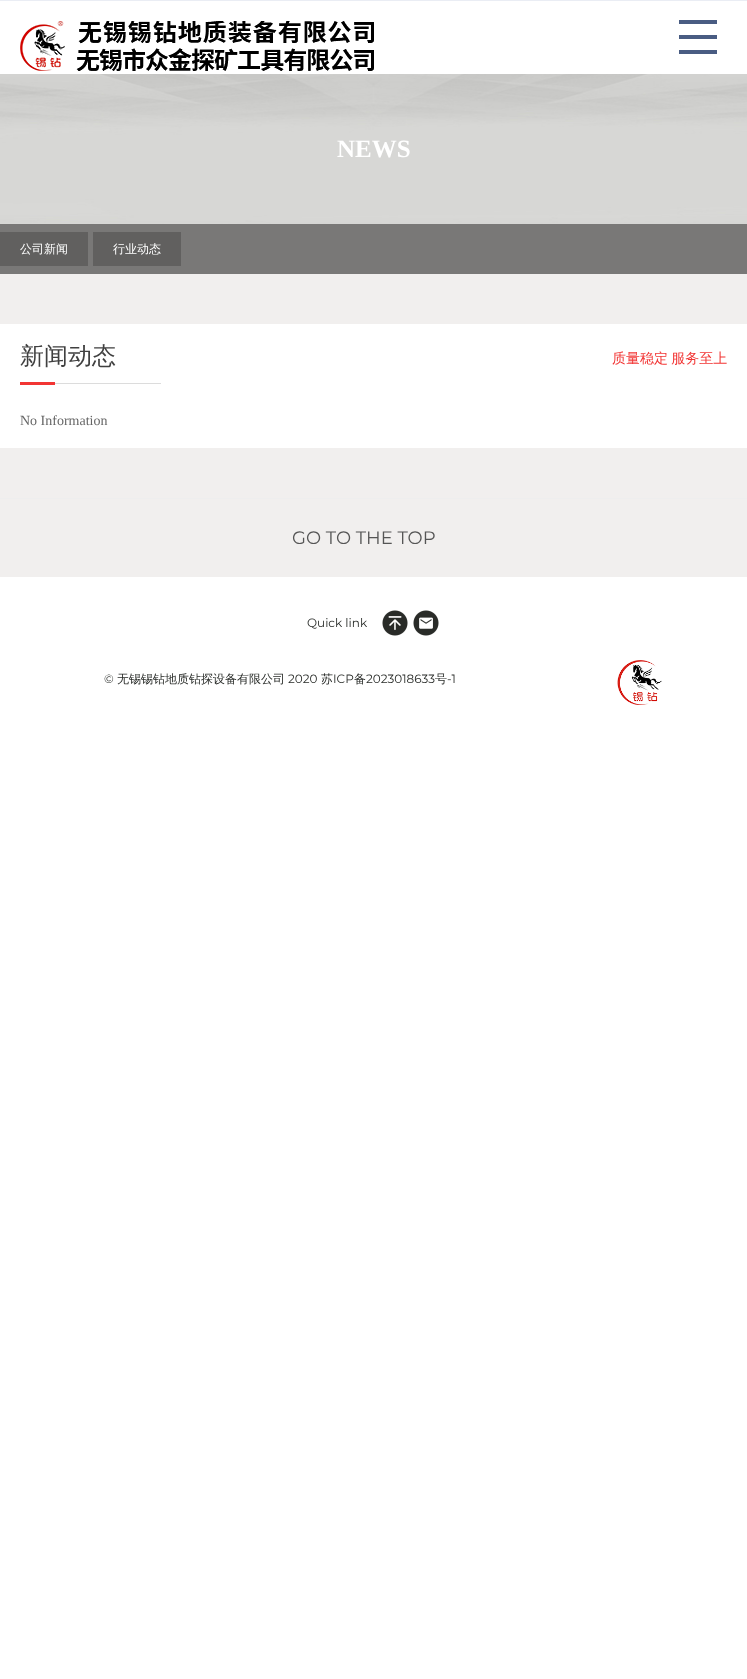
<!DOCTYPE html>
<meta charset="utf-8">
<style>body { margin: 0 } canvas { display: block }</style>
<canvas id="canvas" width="747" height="1679"></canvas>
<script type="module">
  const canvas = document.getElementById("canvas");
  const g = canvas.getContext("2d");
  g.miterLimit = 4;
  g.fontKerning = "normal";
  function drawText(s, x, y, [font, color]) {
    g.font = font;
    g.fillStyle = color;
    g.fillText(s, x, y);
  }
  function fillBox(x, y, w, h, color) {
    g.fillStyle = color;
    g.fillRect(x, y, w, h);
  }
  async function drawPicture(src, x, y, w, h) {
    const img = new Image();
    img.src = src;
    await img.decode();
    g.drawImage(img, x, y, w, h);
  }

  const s1 = ["bold 25px Liberation Serif", "#FFFFFF"];
  const s2 = ["500 12px WenQuanYi Zen Hei", "#FFFFFF"];
  const s3 = ["500 24px WenQuanYi Zen Hei", "#404040"];
  const s4 = ["500 14px WenQuanYi Zen Hei", "#F23534"];
  const s5 = ["14px Liberation Serif", "#666666"];
  const s6 = ["18px Montserrat", "#555555"];
  const s7 = ["12px Montserrat", "#282B28"];
  const s8 = ["500 12px WenQuanYi Zen Hei", "#282B28"];

  fillBox(0, 0, 747, 1679, "#FFFFFF");
  fillBox(0, 274, 747, 303, "#F1EFEE");
  fillBox(0, 0, 747, 1, "#EAEDF4");
  await drawPicture("pic1.png", 20, 21, 354, 50);
  fillBox(679, 20, 38, 4, "#495C82");
  fillBox(679, 35, 38, 4, "#495C82");
  fillBox(679, 50, 38, 4, "#495C82");
  await drawPicture("pic2.png", 0, 74, 747, 150);
  drawText("NEWS", 337, 157, s1);
  fillBox(0, 224, 747, 50, "#797877");
  fillBox(0, 232, 88, 34, "#61605F");
  drawText("公司新闻", 20, 253, s2);
  fillBox(93, 232, 88, 34, "#61605F");
  drawText("行业动态", 113, 253, s2);
  fillBox(0, 498, 747, 1, "#EEEEEE");
  fillBox(0, 324, 747, 124, "#FFFFFF");
  drawText("新闻动态", 20, 364, s3);
  g.wordSpacing = "-1px";
  drawText("质量稳定 服务至上", 612, 363, s4);
  fillBox(20, 382, 35, 3, "#F23534");
  fillBox(55, 383, 106, 1, "#DCDCDC");
  g.wordSpacing = "0px";
  drawText("No Information", 20, 425, s5);
  drawText("GO TO THE TOP", 292, 544, s6);
  drawText("Quick link", 307, 627, s7);
  await drawPicture("pic3.png", 382, 610, 26, 26);
  await drawPicture("pic4.png", 413, 610, 26, 26);
  drawText("©", 104, 683, s7);
  drawText("无锡锡钻地质钻探设备有限公司", 117, 683, s8);
  drawText("2020", 288, 683, s7);
  drawText("苏", 321, 683, s8);
  drawText("ICP", 333, 683, s7);
  drawText("备", 354, 683, s8);
  drawText("2023018633", 366, 683, s7);
  drawText("号", 435, 683, s8);
  drawText("-1", 447, 683, s7);
  await drawPicture("pic5.png", 617, 660, 45, 45);
</script>
